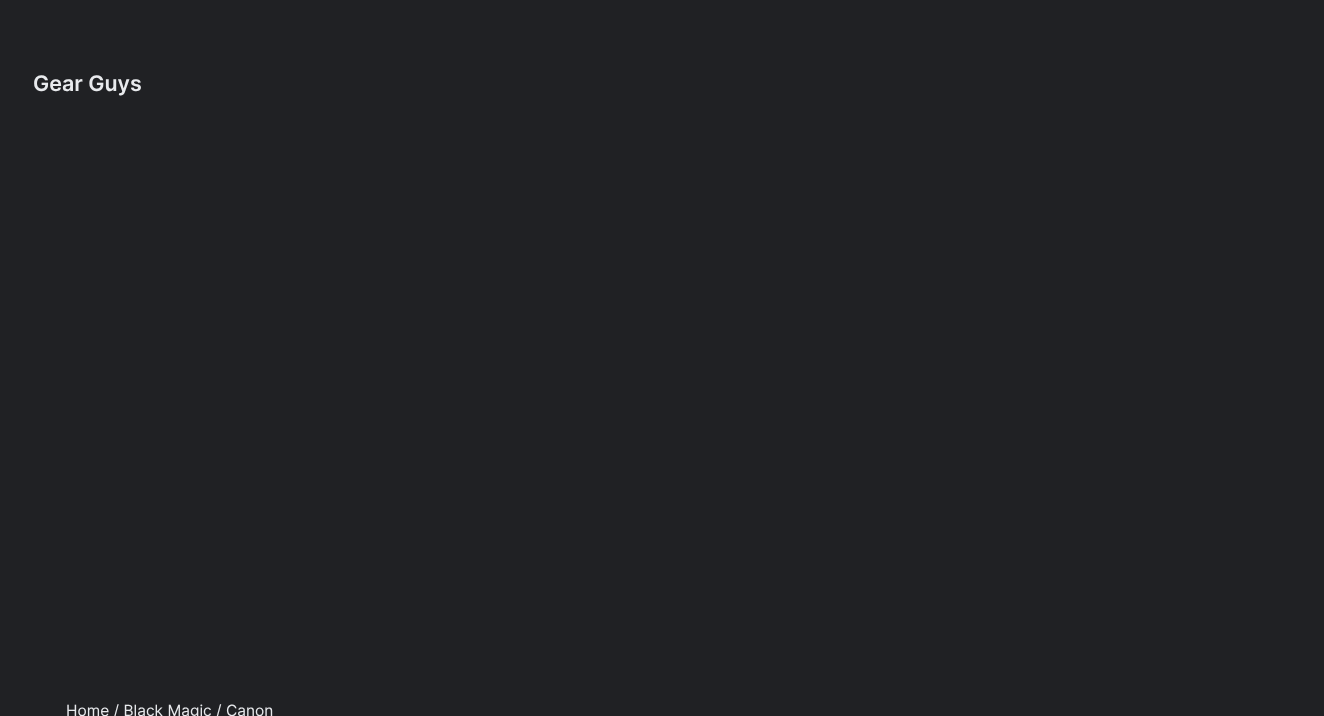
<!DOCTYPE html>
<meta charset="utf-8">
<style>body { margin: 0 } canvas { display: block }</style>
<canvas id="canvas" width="1324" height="716"></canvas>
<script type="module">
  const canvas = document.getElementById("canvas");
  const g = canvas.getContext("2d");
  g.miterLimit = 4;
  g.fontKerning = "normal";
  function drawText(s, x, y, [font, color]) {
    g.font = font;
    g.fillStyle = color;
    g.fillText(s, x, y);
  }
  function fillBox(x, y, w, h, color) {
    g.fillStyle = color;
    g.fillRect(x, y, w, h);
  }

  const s1 = ["600 21.5px Inter", "#E8EAED"];
  const s2 = ["15.5px Inter", "#E8EAED"];

  fillBox(0, 0, 1324, 716, "#202124");
  drawText("Gear Guys", 33, 91, s1);
  drawText("Home / Black Magic / Canon", 66, 716, s2);
</script>
